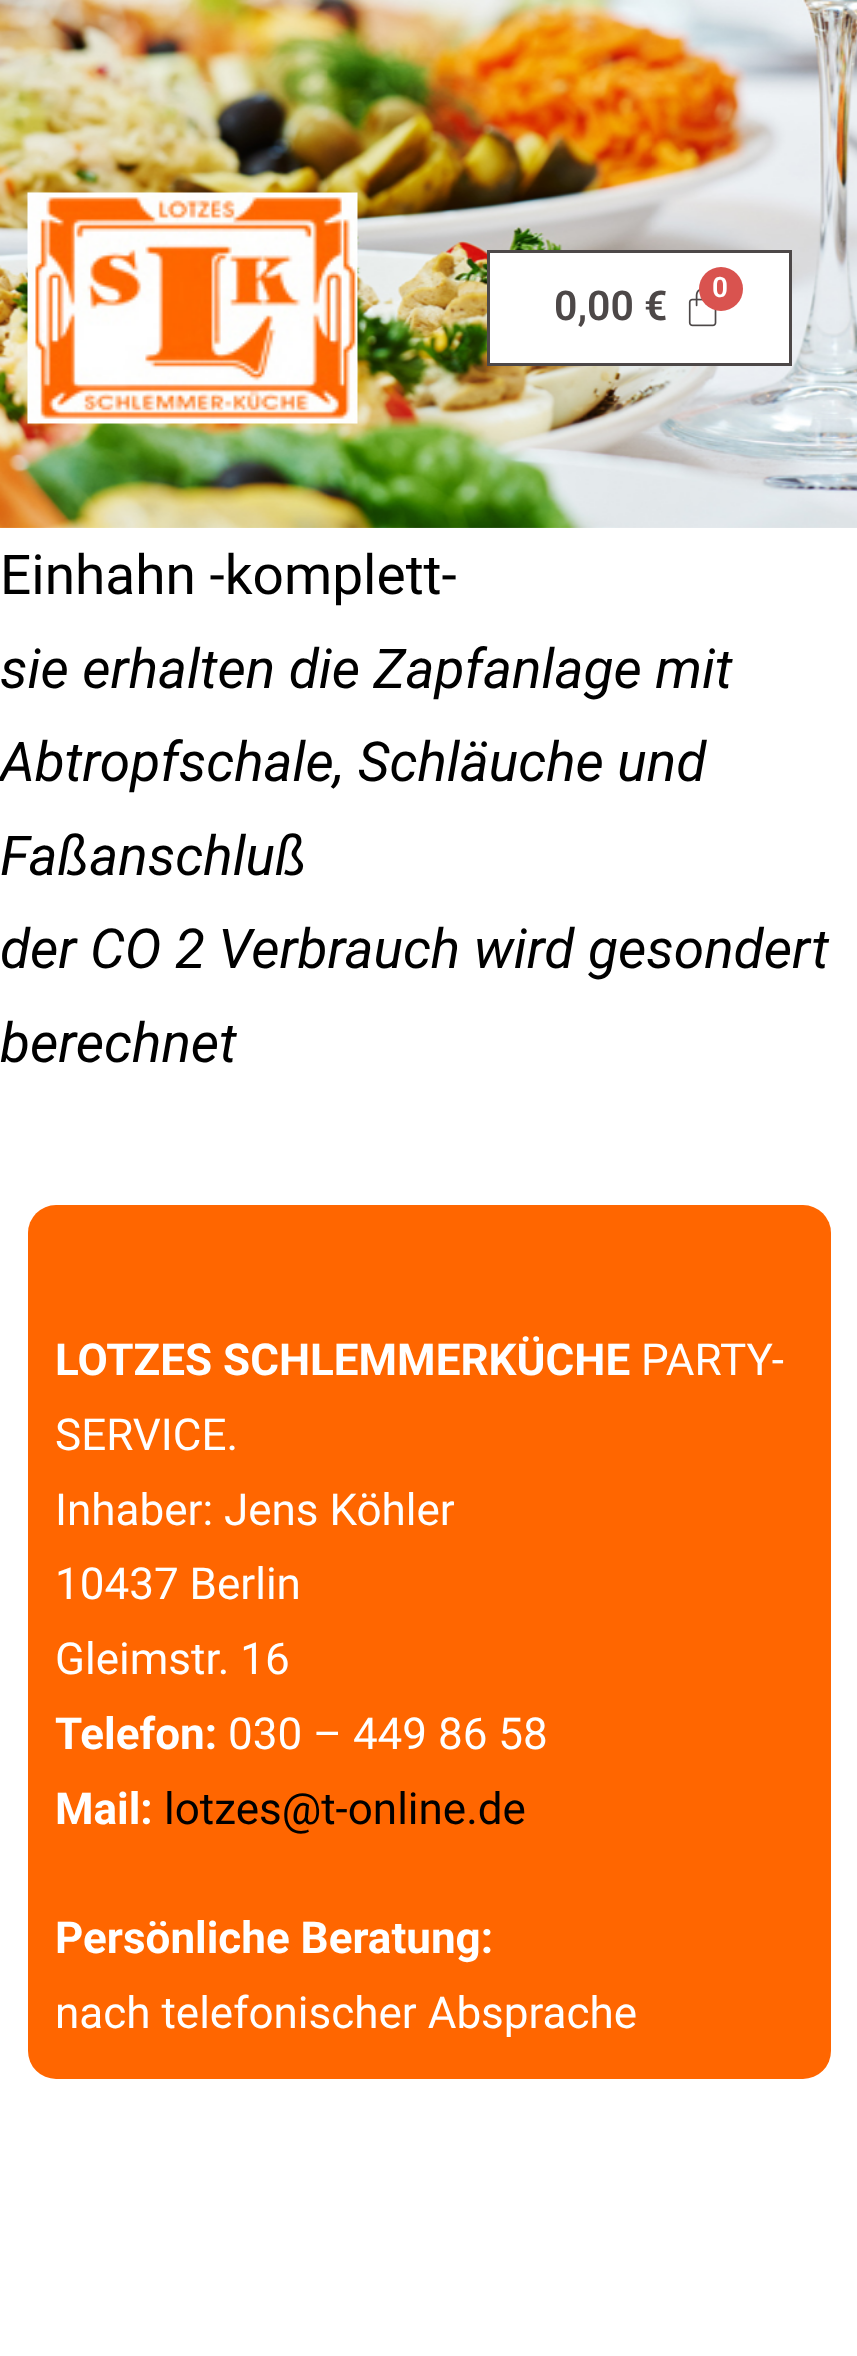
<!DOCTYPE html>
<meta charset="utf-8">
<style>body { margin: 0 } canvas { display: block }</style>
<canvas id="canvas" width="857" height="2356"></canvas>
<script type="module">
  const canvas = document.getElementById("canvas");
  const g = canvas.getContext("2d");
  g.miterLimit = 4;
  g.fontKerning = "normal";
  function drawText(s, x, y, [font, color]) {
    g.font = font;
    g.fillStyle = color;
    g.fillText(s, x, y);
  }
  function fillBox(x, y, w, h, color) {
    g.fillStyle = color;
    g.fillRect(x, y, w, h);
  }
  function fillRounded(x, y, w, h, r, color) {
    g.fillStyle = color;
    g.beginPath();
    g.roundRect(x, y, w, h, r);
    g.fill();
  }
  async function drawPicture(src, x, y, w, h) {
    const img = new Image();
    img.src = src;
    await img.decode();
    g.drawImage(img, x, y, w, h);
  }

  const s1 = ["600 28px Roboto", "#FFFFFF"];
  const s2 = ["600 41px Roboto", "#4D4848"];
  const s3 = ["55px Roboto", "#000000"];
  const s4 = ["italic 55px Roboto", "#000000"];
  const s5 = ["bold 44px Roboto", "#FFFFFF"];
  const s6 = ["44px Roboto", "#FFFFFF"];
  const s7 = ["44px Roboto", "#000000"];

  fillBox(0, 0, 857, 2356, "#FFFFFF");
  await drawPicture("pic1.png", 0, 0, 857, 528);
  await drawPicture("pic2.png", 27, 192, 331, 232);
  g.beginPath();
  g.rect(488.5, 251.5, 302, 113);
  g.fill();
  g.strokeStyle = "#4D4848";
  g.lineWidth = 3;
  g.stroke();
  await drawPicture("pic3.png", 688, 288, 29, 39);
  g.fillStyle = "#D9534F";
  g.beginPath();
  g.arc(721, 289, 22, 0, Math.PI * 2);
  g.fill();
  drawText("0", 712, 297, s1);
  drawText("0,00 €", 554, 320, s2);
  drawText("Einhahn -komplett-", 0, 594, s3);
  drawText("sie erhalten die Zapfanlage mit", 0, 688, s4);
  drawText("Abtropfschale, Schläuche und", 0, 781, s4);
  drawText("Faßanschluß", 0, 875, s4);
  drawText("der CO 2 Verbrauch wird gesondert", 0, 968, s4);
  drawText("berechnet", 0, 1062, s4);
  fillRounded(28, 1205, 803, 874, 28, "#FF6600");
  drawText("LOTZES SCHLEMMERKÜCHE", 55, 1375, s5);
  drawText("PARTY-", 641, 1375, s6);
  drawText("SERVICE.", 55, 1450, s6);
  drawText("Inhaber: Jens Köhler", 55, 1525, s6);
  drawText("10437 Berlin", 55, 1599, s6);
  drawText("Gleimstr. 16", 55, 1674, s6);
  drawText("Telefon:", 55, 1749, s5);
  drawText("030 – 449 86 58", 228, 1749, s6);
  drawText("Mail:", 55, 1824, s5);
  drawText("lotzes@t-online.de", 164, 1824, s7);
  drawText("Persönliche Beratung:", 55, 1953, s5);
  drawText("nach telefonischer Absprache", 55, 2028, s6);
</script>
